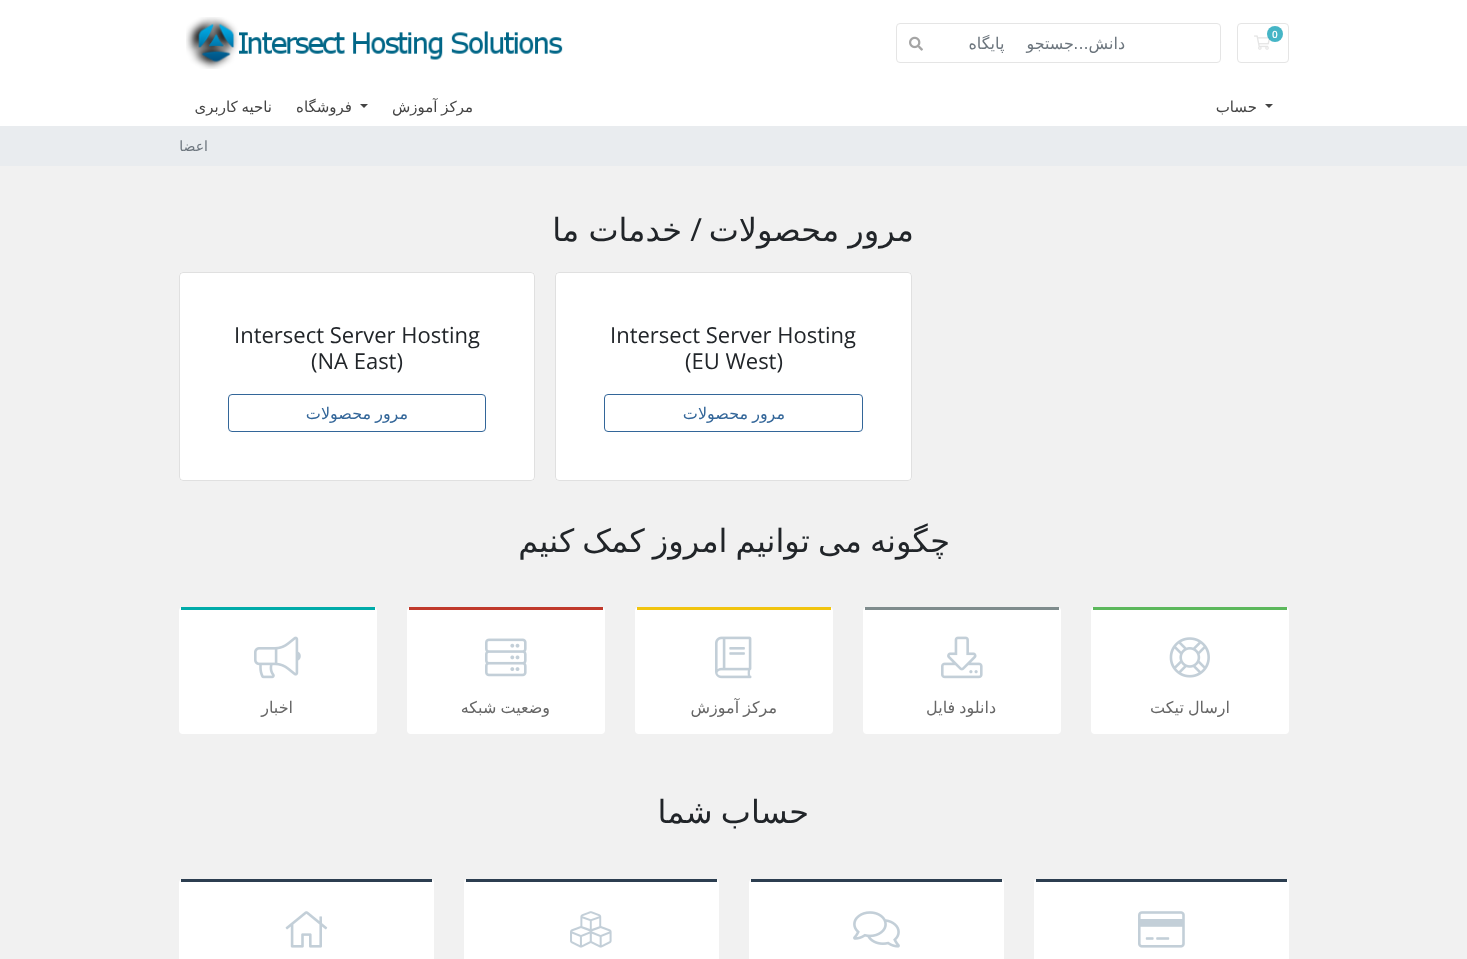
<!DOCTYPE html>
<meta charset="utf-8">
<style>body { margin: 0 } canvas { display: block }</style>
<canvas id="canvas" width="1467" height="959"></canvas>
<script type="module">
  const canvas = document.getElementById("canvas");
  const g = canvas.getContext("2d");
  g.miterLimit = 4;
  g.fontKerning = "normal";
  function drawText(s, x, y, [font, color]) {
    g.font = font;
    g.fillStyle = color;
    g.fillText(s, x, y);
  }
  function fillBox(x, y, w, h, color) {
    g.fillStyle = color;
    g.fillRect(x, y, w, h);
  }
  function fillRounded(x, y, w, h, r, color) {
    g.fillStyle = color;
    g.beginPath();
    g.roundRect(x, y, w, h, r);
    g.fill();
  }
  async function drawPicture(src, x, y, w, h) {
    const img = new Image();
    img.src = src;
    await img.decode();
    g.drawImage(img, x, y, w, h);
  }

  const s1 = ["600 10px Open Sans", "#FFFFFF"];
  const s2 = ["16px DejaVu Sans", "#6C757D"];
  const s3 = ["15px DejaVu Sans", "#444444"];
  const s4 = ["14px DejaVu Sans", "#6C757D"];
  const s5 = ["32px DejaVu Sans", "#212529"];
  const s6 = ["32px Open Sans", "#212529"];
  const s7 = ["22px Open Sans", "#212529"];
  const s8 = ["16px DejaVu Sans", "#336699"];
  const s9 = ["16px DejaVu Sans", "#666666"];

  fillBox(0, 0, 1467, 959, "#F1F1F1");
  fillBox(0, 0, 1467, 126, "#FFFFFF");
  g.beginPath();
  g.roundRect(1237.5, 23.5, 51, 39, 3.5);
  g.strokeStyle = "#E5E5E5";
  g.stroke();
  await drawPicture("pic1.png", 1254, 35, 16, 15);
  g.fillStyle = "rgba(23, 162, 184, 0.8)";
  g.beginPath();
  g.arc(1275, 34, 8, 0, Math.PI * 2);
  g.fill();
  drawText("0", 1272, 38, s1);
  g.beginPath();
  g.roundRect(896.5, 23.5, 324, 39, 3.5);
  g.stroke();
  g.direction = "rtl";
  drawText("دانش...", 1125, 49, s2);
  g.wordSpacing = "17px";
  drawText("جستجو پایگاه", 1074, 49, s2);
  await drawPicture("pic2.png", 909, 36, 14, 15);
  await drawPicture("pic3.png", 186, 17, 377, 52);
  g.fillStyle = "#444444";
  g.beginPath();
  g.moveTo(1265, 104);
  g.lineTo(1273, 104);
  g.lineTo(1269, 108);
  g.closePath();
  g.fill();
  g.wordSpacing = "0px";
  drawText("حساب", 1257, 112, s3);
  g.wordSpacing = "-1px";
  drawText("مرکز آموزش", 473, 112, s3);
  g.beginPath();
  g.moveTo(360, 104);
  g.lineTo(368, 104);
  g.lineTo(364, 108);
  g.closePath();
  g.fill();
  g.wordSpacing = "0px";
  drawText("فروشگاه", 352, 112, s3);
  g.wordSpacing = "-1px";
  drawText("ناحیه کاربری", 272, 112, s3);
  fillBox(0, 126, 1467, 40, "#E9ECEF");
  g.wordSpacing = "0px";
  drawText("اعضا", 208, 151, s4);
  g.wordSpacing = "-1px";
  drawText("مرور محصولات", 914, 241, s5);
  g.wordSpacing = "0px";
  drawText("/", 702, 241, s6);
  g.wordSpacing = "-1px";
  drawText("خدمات ما", 682, 241, s5);
  fillRounded(555, 272, 357, 209, 4, "#FFFFFF");
  g.beginPath();
  g.roundRect(555.5, 272.5, 356, 208, 3.5);
  g.strokeStyle = "rgba(0, 0, 0, 0.12)";
  g.stroke();
  g.wordSpacing = "0px";
  g.direction = "ltr";
  drawText("Intersect Server Hosting", 610, 343, s7);
  drawText("(EU West)", 685, 369, s7);
  g.beginPath();
  g.roundRect(604.5, 394.5, 258, 37, 3.5);
  g.strokeStyle = "#336699";
  g.stroke();
  g.wordSpacing = "-1px";
  g.direction = "rtl";
  drawText("مرور محصولات", 785, 419, s8);
  fillRounded(179, 272, 356, 209, 4, "#FFFFFF");
  g.beginPath();
  g.roundRect(179.5, 272.5, 355, 208, 3.5);
  g.strokeStyle = "rgba(0, 0, 0, 0.12)";
  g.stroke();
  g.wordSpacing = "0px";
  g.direction = "ltr";
  drawText("Intersect Server Hosting", 234, 343, s7);
  drawText("(NA East)", 311, 369, s7);
  g.beginPath();
  g.roundRect(228.5, 394.5, 257, 37, 3.5);
  g.strokeStyle = "#336699";
  g.stroke();
  g.wordSpacing = "-1px";
  g.direction = "rtl";
  drawText("مرور محصولات", 408, 419, s8);
  g.wordSpacing = "-2px";
  drawText("چگونه می توانیم امروز کمک کنیم", 950, 552, s5);
  fillRounded(1091, 607, 198, 127, 4, "#FFFFFF");
  fillBox(1093, 607, 194, 3, "#5CB85C");
  await drawPicture("pic4.png", 1169, 637, 41, 41);
  g.wordSpacing = "-1px";
  drawText("ارسال تیکت", 1230, 713, s9);
  fillRounded(863, 607, 198, 127, 4, "#FFFFFF");
  fillBox(865, 607, 194, 3, "#7F8C8D");
  await drawPicture("pic5.png", 941, 636, 42, 43);
  drawText("دانلود فایل", 996, 713, s9);
  fillRounded(635, 607, 198, 127, 4, "#FFFFFF");
  fillBox(637, 607, 194, 3, "#F1C40F");
  await drawPicture("pic6.png", 715, 636, 37, 43);
  drawText("مرکز آموزش", 777, 713, s9);
  fillRounded(407, 607, 198, 127, 4, "#FFFFFF");
  fillBox(409, 607, 194, 3, "#C0392B");
  await drawPicture("pic7.png", 485, 638, 42, 39);
  drawText("وضعیت شبکه", 550, 713, s9);
  fillRounded(179, 607, 198, 127, 4, "#FFFFFF");
  fillBox(181, 607, 194, 3, "#00ABA9");
  await drawPicture("pic8.png", 254, 636, 47, 43);
  g.wordSpacing = "0px";
  drawText("اخبار", 293, 713, s9);
  g.wordSpacing = "-2px";
  drawText("حساب شما", 809, 823, s5);
  fillRounded(1034, 879, 255, 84, 4, "#FFFFFF");
  fillBox(1036, 879, 251, 3, "#2C3E50");
  await drawPicture("pic9.png", 1138, 911, 47, 37);
  fillRounded(749, 879, 255, 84, 4, "#FFFFFF");
  fillBox(751, 879, 251, 3, "#2C3E50");
  await drawPicture("pic10.png", 853, 911, 47, 37);
  fillRounded(464, 879, 255, 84, 4, "#FFFFFF");
  fillBox(466, 879, 251, 3, "#2C3E50");
  await drawPicture("pic11.png", 570, 911, 42, 37);
  fillRounded(179, 879, 255, 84, 4, "#FFFFFF");
  fillBox(181, 879, 251, 3, "#2C3E50");
  await drawPicture("pic12.png", 285, 911, 43, 37);
</script>
